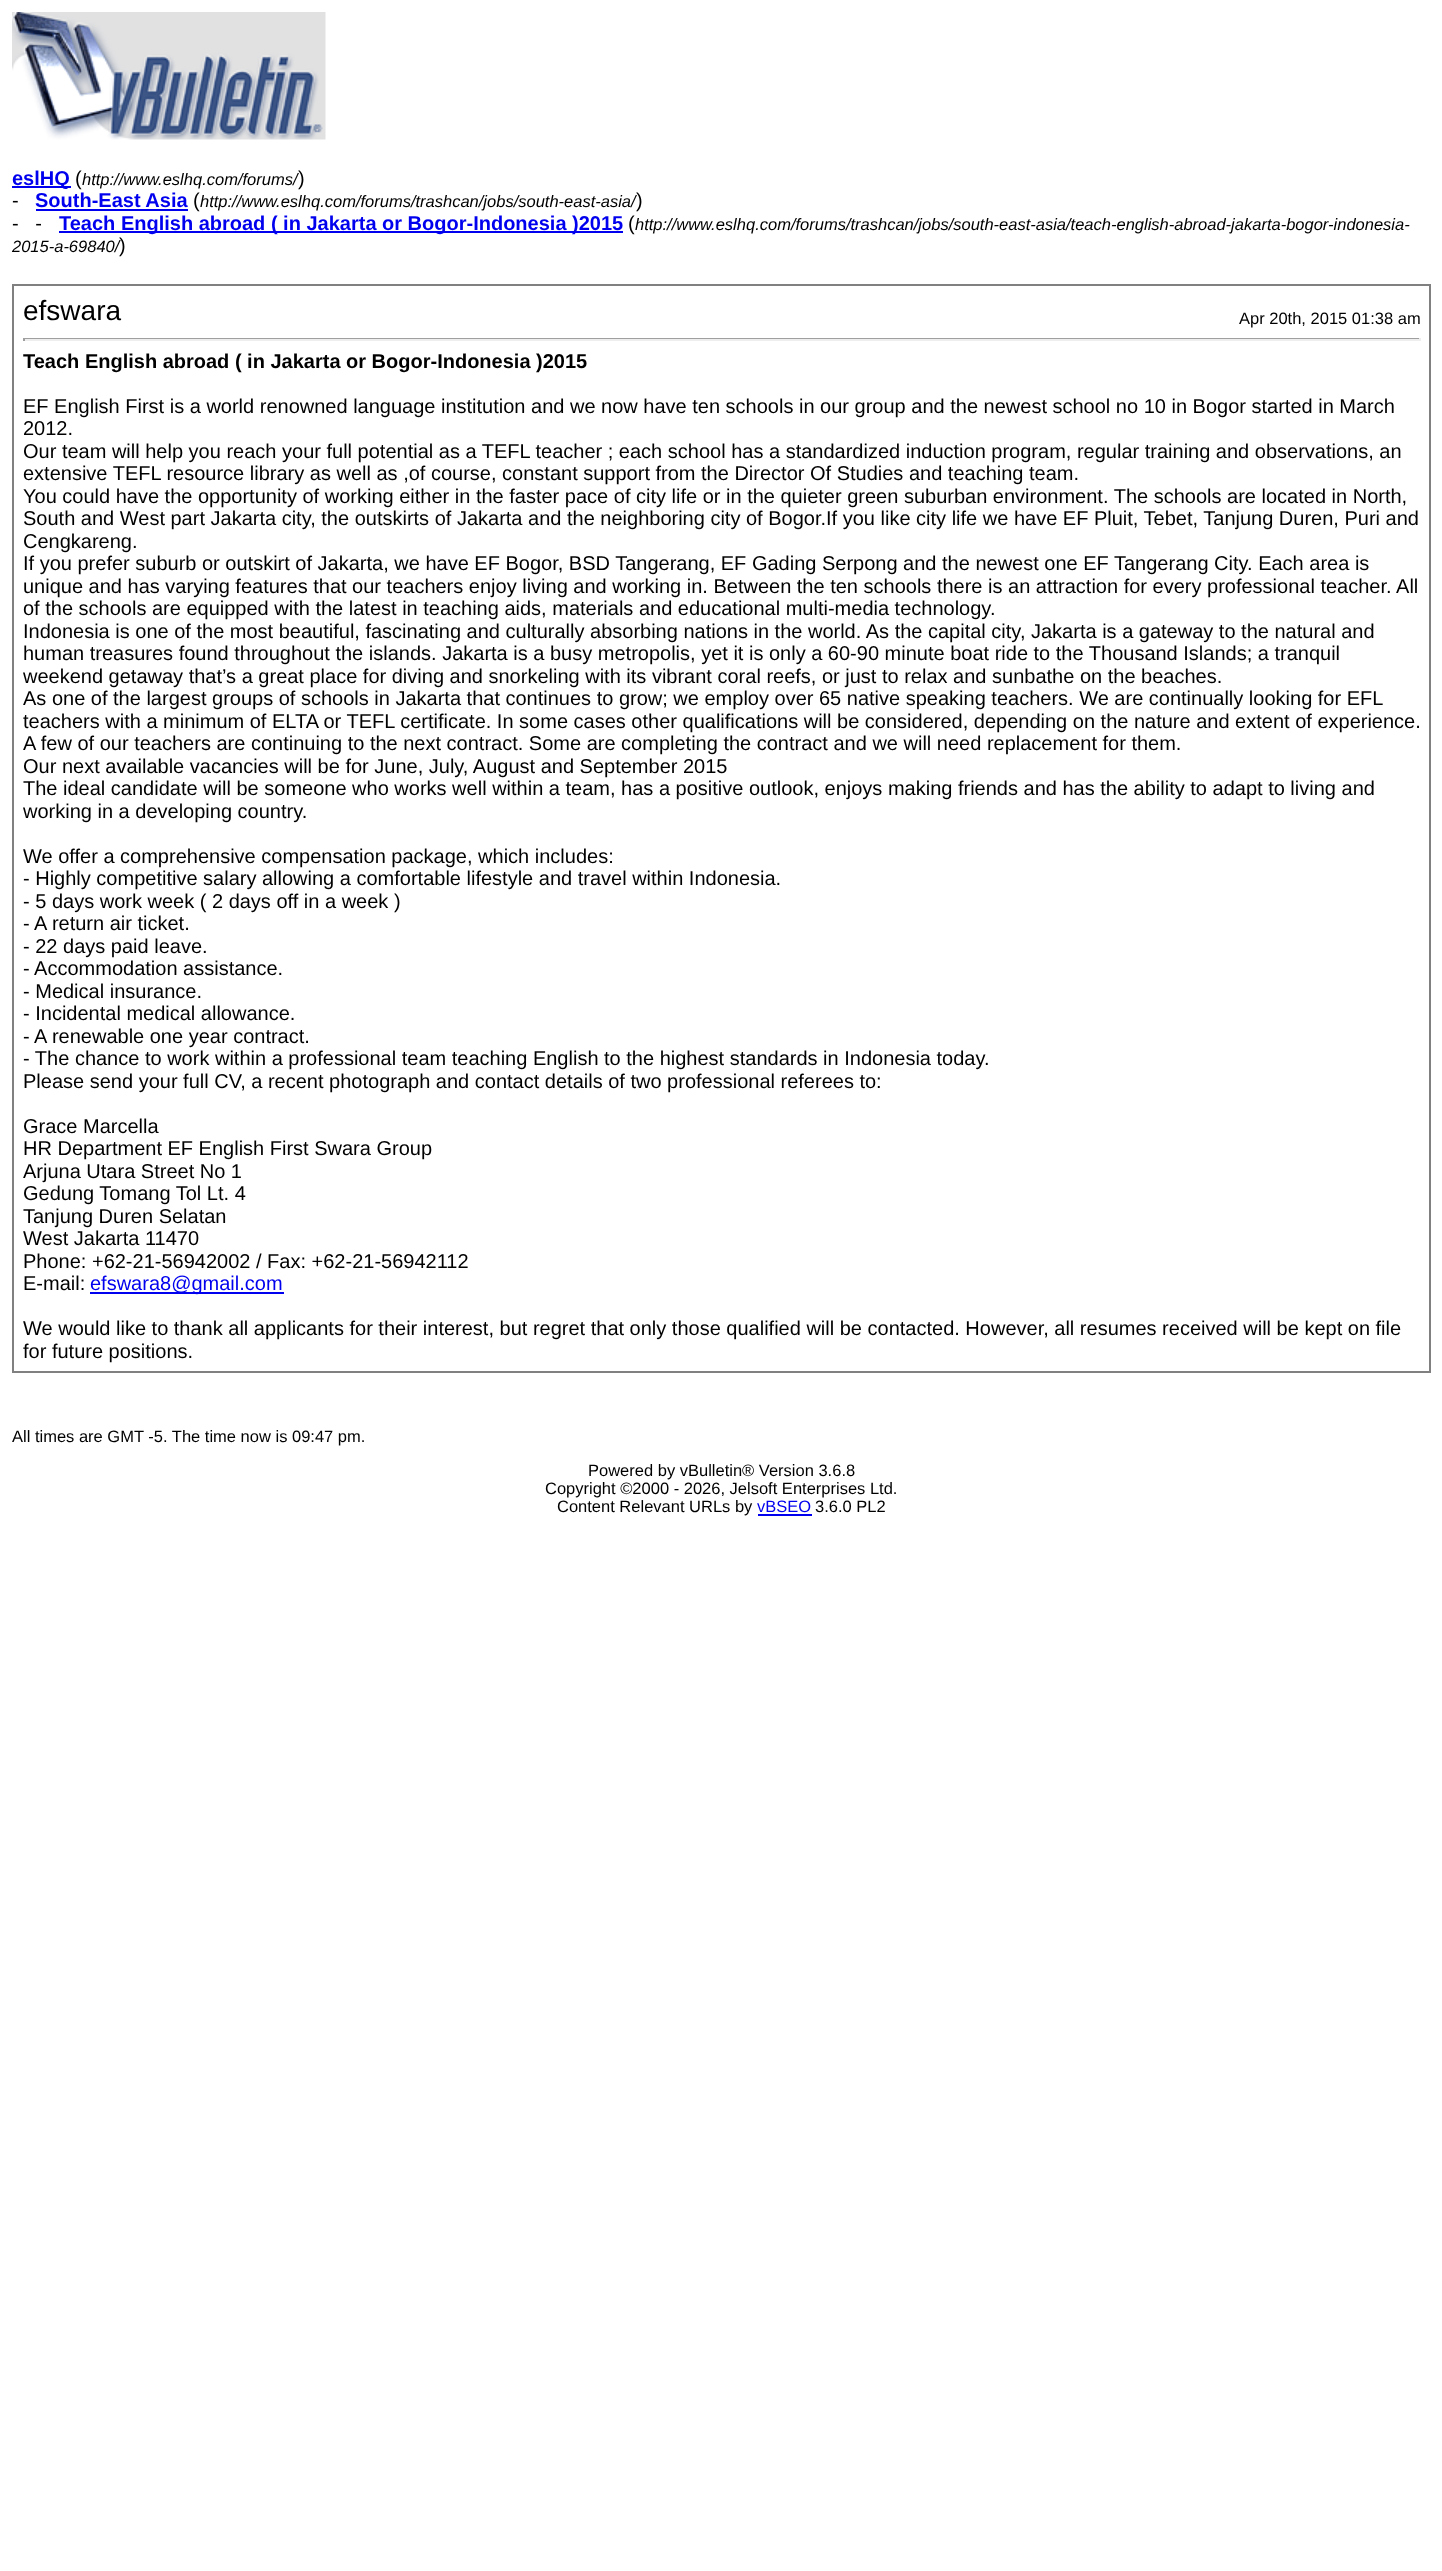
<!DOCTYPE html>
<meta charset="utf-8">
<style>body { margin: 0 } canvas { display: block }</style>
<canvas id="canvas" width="1442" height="2571"></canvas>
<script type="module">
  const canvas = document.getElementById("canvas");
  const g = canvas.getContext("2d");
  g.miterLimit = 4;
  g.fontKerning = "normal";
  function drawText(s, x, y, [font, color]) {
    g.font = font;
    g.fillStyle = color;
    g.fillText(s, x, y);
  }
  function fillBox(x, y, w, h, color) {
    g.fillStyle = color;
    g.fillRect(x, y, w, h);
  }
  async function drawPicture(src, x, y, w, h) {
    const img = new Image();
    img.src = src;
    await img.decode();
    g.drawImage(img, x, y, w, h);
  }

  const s1 = ["bold 20px Liberation Sans", "#0000EE"];
  const s2 = ["20px Liberation Sans", "#000000"];
  const s3 = ["italic 16.5px Liberation Sans", "#000000"];
  const s4 = ["28px Liberation Sans", "#000000"];
  const s5 = ["16.5px Liberation Sans", "#000000"];
  const s6 = ["bold 20px Liberation Sans", "#000000"];
  const s7 = ["20px Liberation Sans", "#0000EE"];
  const s8 = ["16.5px Liberation Sans", "#0000EE"];

  fillBox(0, 0, 1442, 2571, "#FFFFFF");
  await drawPicture("pic1.png", 12, 12, 314, 128);
  fillBox(12, 186, 59, 2, "#0000EE");
  drawText("eslHQ", 12, 185, s1);
  drawText("(", 75, 185, s2);
  drawText("http://www.eslhq.com/forums/", 82, 185, s3);
  drawText(")", 298, 185, s2);
  drawText("-", 12, 207, s2);
  drawText("South-East Asia", 35, 207, s1);
  fillBox(36, 209, 152, 2, "#0000EE");
  drawText("(", 193, 207, s2);
  drawText("http://www.eslhq.com/forums/trashcan/jobs/south-east-asia/", 200, 207, s3);
  drawText(")", 636, 207, s2);
  drawText("-   -", 12, 230, s2);
  fillBox(59, 231, 564, 2, "#0000EE");
  drawText("Teach English abroad ( in Jakarta or Bogor-Indonesia )2015", 59, 230, s1);
  drawText("(", 628, 230, s2);
  drawText("http://www.eslhq.com/forums/trashcan/jobs/south-east-asia/teach-english-abroad-jakarta-bogor-indonesia-", 635, 230, s3);
  drawText("2015-a-69840/", 12, 252, s3);
  drawText(")", 119, 252, s2);
  g.strokeStyle = "#808080";
  g.lineWidth = 2;
  g.strokeRect(13, 285, 1417, 1087);
  drawText("efswara", 23, 320, s4);
  drawText("Apr 20th, 2015 01:38 am", 1239, 324, s5);
  fillBox(23, 338, 1398, 1, "#9F9F9F");
  fillBox(1419, 338, 2, 3, "#EEEEEE");
  fillBox(23, 339, 1398, 2, "#EEEEEE");
  fillBox(23, 338, 2, 3, "#9F9F9F");
  drawText("Teach English abroad ( in Jakarta or Bogor-Indonesia )2015", 23, 368, s6);
  drawText("EF English First is a world renowned language institution and we now have ten schools in our group and the newest school no 10 in Bogor started in March", 23, 413, s2);
  drawText("2012.", 23, 435, s2);
  drawText("Our team will help you reach your full potential as a TEFL teacher ; each school has a standardized induction program, regular training and observations, an", 23, 458, s2);
  drawText("extensive TEFL resource library as well as ,of course, constant support from the Director Of Studies and teaching team.", 23, 480, s2);
  drawText("You could have the opportunity of working either in the faster pace of city life or in the quieter green suburban environment. The schools are located in North,", 23, 503, s2);
  drawText("South and West part Jakarta city, the outskirts of Jakarta and the neighboring city of Bogor.If you like city life we have EF Pluit, Tebet, Tanjung Duren, Puri and", 23, 525, s2);
  drawText("Cengkareng.", 23, 548, s2);
  drawText("If you prefer suburb or outskirt of Jakarta, we have EF Bogor, BSD Tangerang, EF Gading Serpong and the newest one EF Tangerang City. Each area is", 23, 570, s2);
  drawText("unique and has varying features that our teachers enjoy living and working in. Between the ten schools there is an attraction for every professional teacher. All", 23, 593, s2);
  drawText("of the schools are equipped with the latest in teaching aids, materials and educational multi-media technology.", 23, 615, s2);
  drawText("Indonesia is one of the most beautiful, fascinating and culturally absorbing nations in the world. As the capital city, Jakarta is a gateway to the natural and", 23, 638, s2);
  drawText("human treasures found throughout the islands. Jakarta is a busy metropolis, yet it is only a 60-90 minute boat ride to the Thousand Islands; a tranquil", 23, 660, s2);
  drawText("weekend getaway that’s a great place for diving and snorkeling with its vibrant coral reefs, or just to relax and sunbathe on the beaches.", 23, 683, s2);
  drawText("As one of the largest groups of schools in Jakarta that continues to grow; we employ over 65 native speaking teachers. We are continually looking for EFL", 23, 705, s2);
  drawText("teachers with a minimum of ELTA or TEFL certificate. In some cases other qualifications will be considered, depending on the nature and extent of experience.", 23, 728, s2);
  drawText("A few of our teachers are continuing to the next contract. Some are completing the contract and we will need replacement for them.", 23, 750, s2);
  drawText("Our next available vacancies will be for June, July, August and September 2015", 23, 773, s2);
  drawText("The ideal candidate will be someone who works well within a team, has a positive outlook, enjoys making friends and has the ability to adapt to living and", 23, 795, s2);
  drawText("working in a developing country.", 23, 818, s2);
  drawText("We offer a comprehensive compensation package, which includes:", 23, 863, s2);
  drawText("- Highly competitive salary allowing a comfortable lifestyle and travel within Indonesia.", 23, 885, s2);
  drawText("- 5 days work week ( 2 days off in a week )", 23, 908, s2);
  drawText("- A return air ticket.", 23, 930, s2);
  drawText("- 22 days paid leave.", 23, 953, s2);
  drawText("- Accommodation assistance.", 23, 975, s2);
  drawText("- Medical insurance.", 23, 998, s2);
  drawText("- Incidental medical allowance.", 23, 1020, s2);
  drawText("- A renewable one year contract.", 23, 1043, s2);
  drawText("- The chance to work within a professional team teaching English to the highest standards in Indonesia today.", 23, 1065, s2);
  drawText("Please send your full CV, a recent photograph and contact details of two professional referees to:", 23, 1088, s2);
  drawText("Grace Marcella", 23, 1133, s2);
  drawText("HR Department EF English First Swara Group", 23, 1155, s2);
  drawText("Arjuna Utara Street No 1", 23, 1178, s2);
  drawText("Gedung Tomang Tol Lt. 4", 23, 1200, s2);
  drawText("Tanjung Duren Selatan", 23, 1223, s2);
  drawText("West Jakarta 11470", 23, 1245, s2);
  drawText("Phone: +62-21-56942002 / Fax: +62-21-56942112", 23, 1268, s2);
  drawText("E-mail:", 23, 1290, s2);
  fillBox(90, 1292, 194, 2, "#0000EE");
  drawText("efswara8@gmail.com", 90, 1290, s7);
  drawText("We would like to thank all applicants for their interest, but regret that only those qualified will be contacted. However, all resumes received will be kept on file", 23, 1335, s2);
  drawText("for future positions.", 23, 1358, s2);
  drawText("All times are GMT -5. The time now is 09:47 pm.", 12, 1442, s5);
  drawText("Powered by vBulletin® Version 3.6.8", 588, 1476, s5);
  drawText("Copyright ©2000 - 2026, Jelsoft Enterprises Ltd.", 545, 1494, s5);
  drawText("Content Relevant URLs by", 557, 1512, s5);
  drawText("vBSEO", 757, 1512, s8);
  fillBox(758, 1514, 54, 2, "#0000EE");
  drawText("3.6.0 PL2", 815, 1512, s5);
</script>
